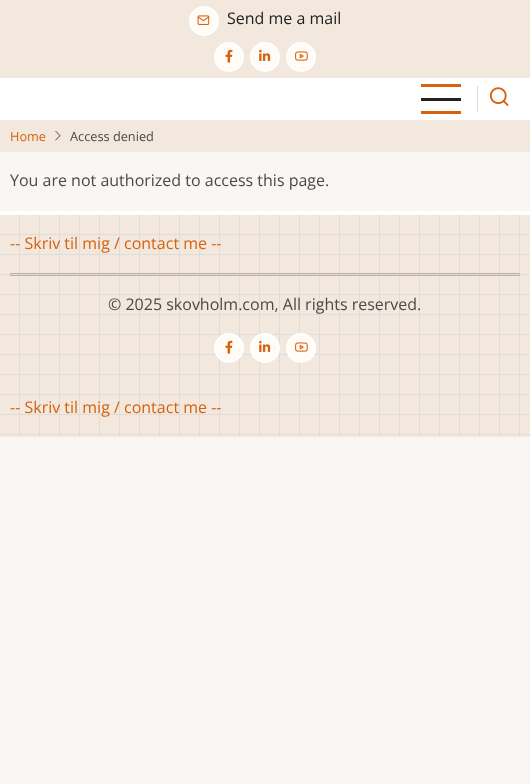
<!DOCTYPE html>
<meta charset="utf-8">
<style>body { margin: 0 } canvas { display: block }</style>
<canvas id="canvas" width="530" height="784"></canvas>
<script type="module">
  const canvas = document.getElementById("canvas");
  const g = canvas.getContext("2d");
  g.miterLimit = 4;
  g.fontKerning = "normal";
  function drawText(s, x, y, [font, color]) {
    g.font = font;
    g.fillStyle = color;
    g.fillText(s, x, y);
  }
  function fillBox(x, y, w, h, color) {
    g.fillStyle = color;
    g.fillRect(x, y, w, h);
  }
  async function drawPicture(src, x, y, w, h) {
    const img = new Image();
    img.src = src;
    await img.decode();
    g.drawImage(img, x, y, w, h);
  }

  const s1 = ["16px Open Sans", "#222222"];
  const s2 = ["12.75px Open Sans", "#D6620E"];
  const s3 = ["12.75px Open Sans", "#4A4A4A"];
  const s4 = ["16px Open Sans", "#4A4A4A"];
  const s5 = ["16px Open Sans", "#D6620E"];

  fillBox(0, 0, 530, 784, "#F9F6F3");
  fillBox(0, 0, 530, 78, "#F2E8DD");
  g.fillStyle = "#FFFBF6";
  g.beginPath();
  g.arc(204, 21, 14, 0, Math.PI * 2);
  g.fill();
  g.strokeStyle = "#FFFFFF";
  g.lineWidth = 2;
  g.stroke();
  await drawPicture("pic1.png", 197, 15, 13, 10);
  drawText("Send me a mail", 227, 24, s1);
  g.fillStyle = "#FFFBF6";
  g.beginPath();
  g.arc(229, 57, 14, 0, Math.PI * 2);
  g.fill();
  g.stroke();
  await drawPicture("pic2.png", 225, 49, 8, 14);
  g.beginPath();
  g.arc(265, 57, 14, 0, Math.PI * 2);
  g.fill();
  g.stroke();
  await drawPicture("pic3.png", 259, 49, 12, 12);
  g.beginPath();
  g.arc(301, 57, 14, 0, Math.PI * 2);
  g.fill();
  g.stroke();
  await drawPicture("pic4.png", 295, 51, 13, 10);
  fillBox(0, 78, 530, 42, "#FFFFFF");
  fillBox(421, 84, 40, 3, "#D6620E");
  fillBox(421, 98, 40, 3, "#222222");
  fillBox(421, 111, 40, 3, "#D6620E");
  fillBox(477, 86, 1, 26, "#DBDBD3");
  await drawPicture("pic5.png", 489, 87, 20, 19);
  fillBox(0, 120, 530, 32, "#F2E8DD");
  drawText("Home", 10, 141, s2);
  await drawPicture("pic6.png", 55, 131, 6, 10);
  drawText("Access denied", 70, 141, s3);
  drawText("You are not authorized to access this page.", 10, 186, s4);
  fillBox(0, 215, 530, 222, "#F2E8DD");
  await drawPicture("pic7.png", 0, 215, 530, 222);
  fillBox(0, 211, 530, 4, "#FFFFFF");
  drawText("-- Skriv til mig / contact me --", 10, 249, s5);
  fillBox(10, 273, 510, 1, "#BBB0A1");
  fillBox(10, 275, 510, 1, "#BBB0A1");
  drawText("© 2025 skovholm.com, All rights reserved.", 108, 310, s4);
  g.fillStyle = "#FFFBF6";
  g.beginPath();
  g.arc(229, 348, 14, 0, Math.PI * 2);
  g.fill();
  g.stroke();
  await drawPicture("pic2.png", 225, 340, 8, 14);
  g.beginPath();
  g.arc(265, 348, 14, 0, Math.PI * 2);
  g.fill();
  g.stroke();
  await drawPicture("pic3.png", 259, 340, 12, 12);
  g.beginPath();
  g.arc(301, 348, 14, 0, Math.PI * 2);
  g.fill();
  g.stroke();
  await drawPicture("pic4.png", 295, 342, 13, 10);
  drawText("-- Skriv til mig / contact me --", 10, 413, s5);
</script>
